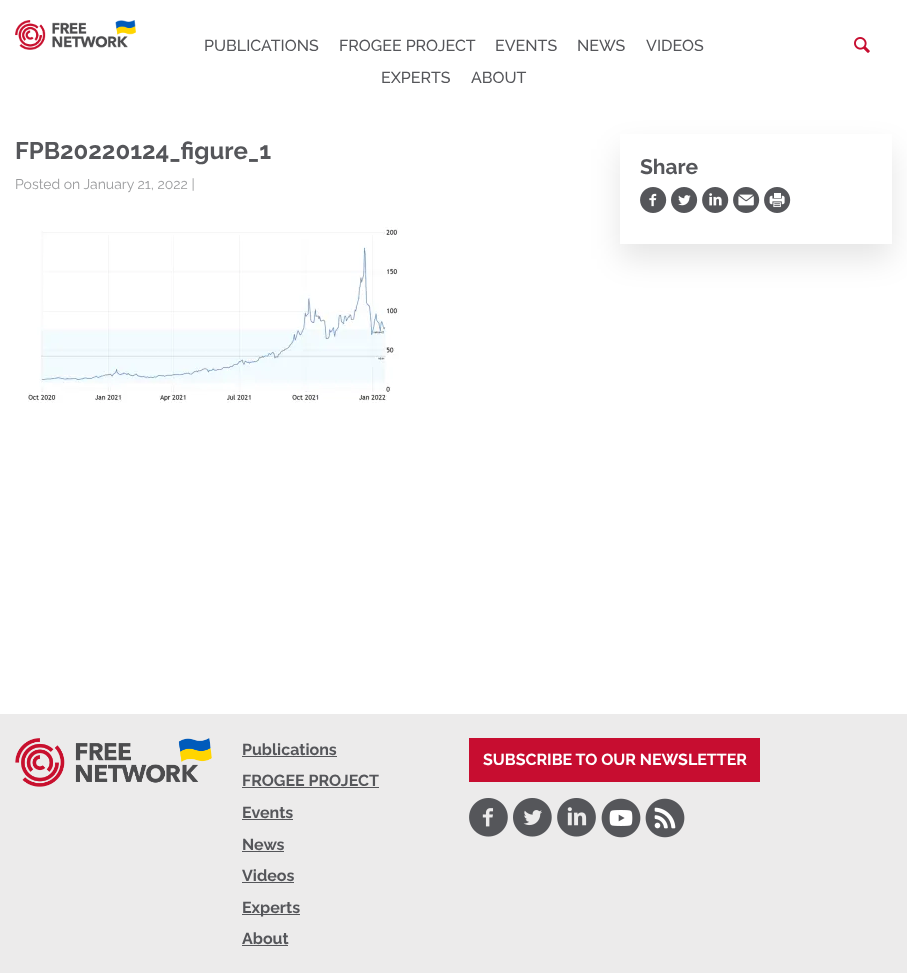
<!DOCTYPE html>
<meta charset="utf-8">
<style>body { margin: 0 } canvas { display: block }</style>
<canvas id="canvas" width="907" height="973"></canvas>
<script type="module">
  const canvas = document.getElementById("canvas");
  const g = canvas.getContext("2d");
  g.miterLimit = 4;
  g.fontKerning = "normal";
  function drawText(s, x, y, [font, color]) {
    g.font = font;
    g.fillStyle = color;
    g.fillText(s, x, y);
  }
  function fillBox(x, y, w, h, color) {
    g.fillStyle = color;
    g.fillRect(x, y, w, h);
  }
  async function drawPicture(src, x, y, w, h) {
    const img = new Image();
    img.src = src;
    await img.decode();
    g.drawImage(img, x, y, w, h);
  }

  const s1 = ["500 16px Raleway", "#55565A"];
  const s2 = ["bold 24px Raleway", "#55565A"];
  const s3 = ["14px Raleway", "#999A9C"];
  const s4 = ["bold 21px Raleway", "#55565A"];
  const s5 = ["bold 16px Raleway", "#55565A"];
  const s6 = ["bold 16px Raleway", "#FFFFFF"];

  fillBox(0, 0, 907, 973, "#FFFFFF");
  await drawPicture("pic1.png", 15, 20, 121, 30);
  drawText("PUBLICATIONS", 204, 51, s1);
  drawText("FROGEE PROJECT", 339, 51, s1);
  drawText("EVENTS", 495, 51, s1);
  drawText("NEWS", 577, 51, s1);
  drawText("VIDEOS", 646, 51, s1);
  drawText("EXPERTS", 381, 83, s1);
  drawText("ABOUT", 471, 83, s1);
  await drawPicture("pic2.png", 854, 37, 16, 16);
  drawText("FPB20220124_figure_1", 15, 159, s2);
  drawText("Posted on January 21, 2022 |", 15, 189, s3);
  await drawPicture("pic3.png", 28, 227, 371, 176);
  g.save();
  g.beginPath();
  g.moveTo(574, 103);
  g.lineTo(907, 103);
  g.lineTo(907, 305);
  g.lineTo(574, 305);
  g.closePath();
  g.moveTo(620, 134);
  g.lineTo(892, 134);
  g.lineTo(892, 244);
  g.lineTo(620, 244);
  g.closePath();
  g.clip("evenodd");
  g.fillStyle = "rgba(0, 0, 0, 0.1)";
  g.filter = "blur(15px)";
  g.beginPath();
  g.rect(620, 149, 272, 110);
  g.fill();
  g.filter = "none";
  g.restore();
  drawText("Share", 640, 174, s4);
  await drawPicture("pic4.png", 640, 187, 27, 26);
  await drawPicture("pic5.png", 671, 187, 27, 26);
  await drawPicture("pic6.png", 702, 187, 27, 26);
  await drawPicture("pic7.png", 733, 187, 27, 26);
  await drawPicture("pic8.png", 764, 187, 27, 26);
  fillBox(0, 714, 907, 259, "#ECEBEB");
  await drawPicture("pic9.png", 15, 738, 197, 49);
  drawText("Publications", 242, 755, s5);
  fillBox(242, 756, 95, 1, "#55565A");
  drawText("FROGEE PROJECT", 242, 786, s5);
  fillBox(242, 787, 137, 1, "#55565A");
  drawText("Events", 242, 818, s5);
  fillBox(242, 819, 51, 1, "#55565A");
  drawText("News", 242, 850, s5);
  fillBox(242, 851, 42, 1, "#55565A");
  drawText("Videos", 242, 881, s5);
  fillBox(242, 882, 52, 1, "#55565A");
  fillBox(242, 914, 58, 1, "#55565A");
  drawText("Experts", 242, 913, s5);
  drawText("About", 242, 944, s5);
  fillBox(242, 945, 46, 1, "#55565A");
  fillBox(469, 738, 291, 44, "#C70D30");
  drawText("SUBSCRIBE TO OUR NEWSLETTER", 483, 765, s6);
  await drawPicture("pic10.png", 469, 798, 39, 39);
  await drawPicture("pic11.png", 513, 798, 39, 39);
  await drawPicture("pic12.png", 557, 798, 39, 39);
  await drawPicture("pic13.png", 601, 798, 40, 40);
  await drawPicture("pic14.png", 645, 798, 40, 40);
</script>
